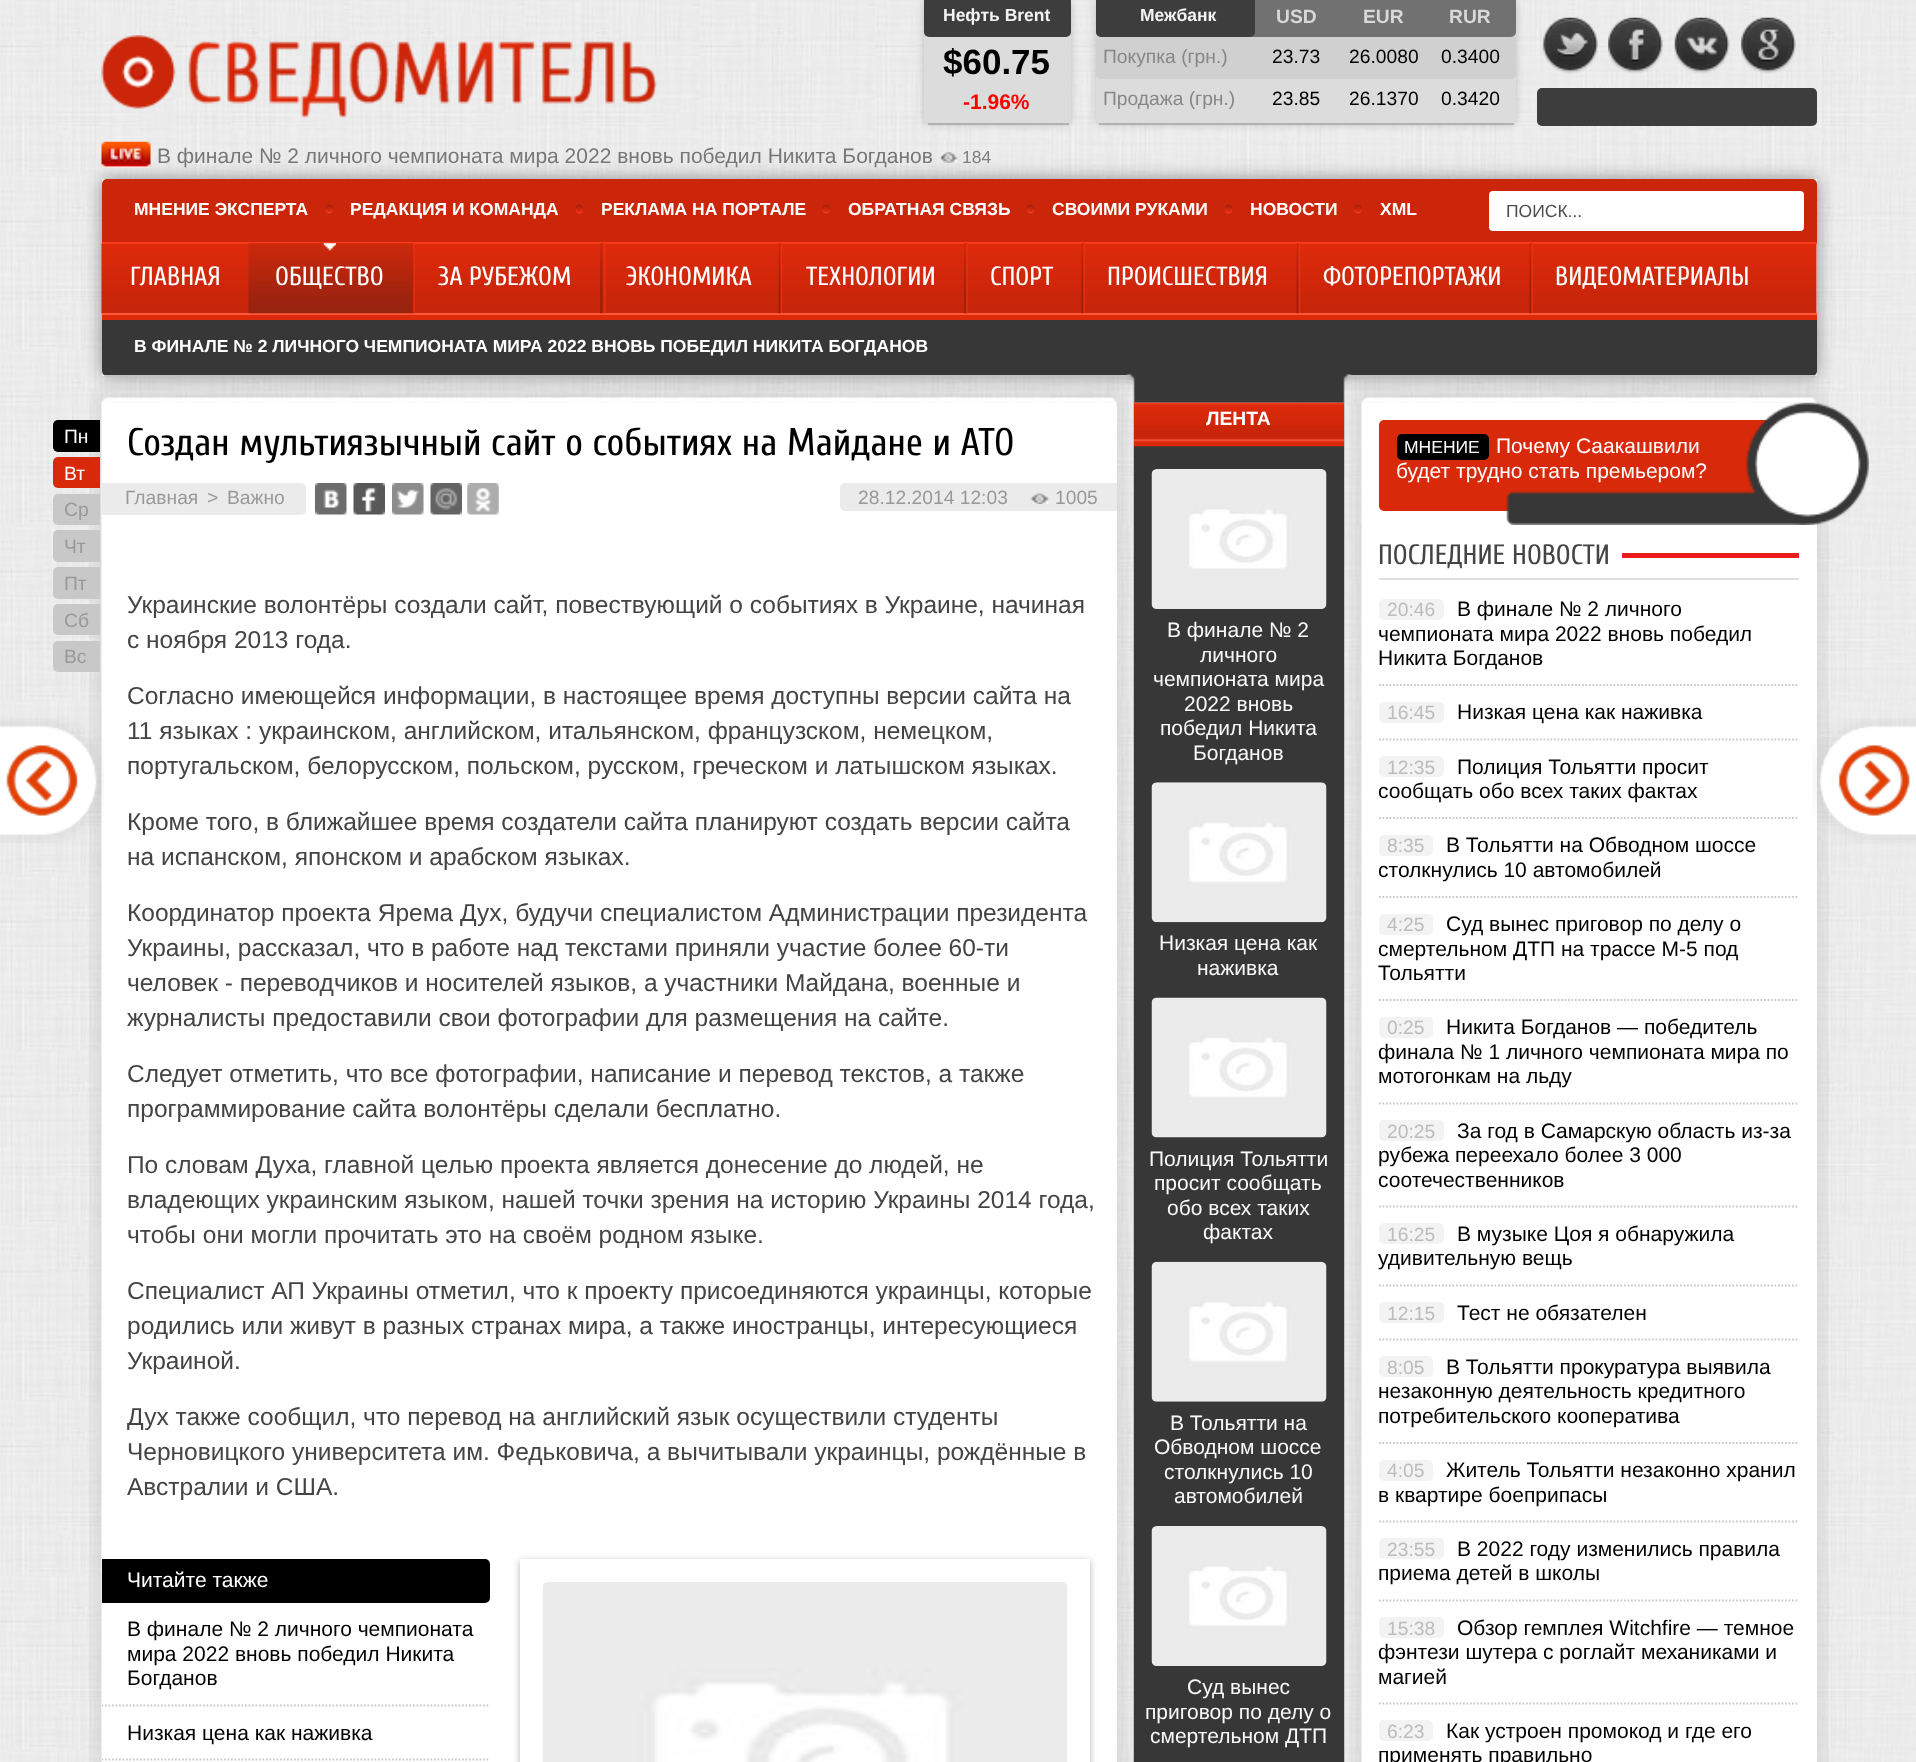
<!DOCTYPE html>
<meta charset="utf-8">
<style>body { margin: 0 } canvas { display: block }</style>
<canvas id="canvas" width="1916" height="1762"></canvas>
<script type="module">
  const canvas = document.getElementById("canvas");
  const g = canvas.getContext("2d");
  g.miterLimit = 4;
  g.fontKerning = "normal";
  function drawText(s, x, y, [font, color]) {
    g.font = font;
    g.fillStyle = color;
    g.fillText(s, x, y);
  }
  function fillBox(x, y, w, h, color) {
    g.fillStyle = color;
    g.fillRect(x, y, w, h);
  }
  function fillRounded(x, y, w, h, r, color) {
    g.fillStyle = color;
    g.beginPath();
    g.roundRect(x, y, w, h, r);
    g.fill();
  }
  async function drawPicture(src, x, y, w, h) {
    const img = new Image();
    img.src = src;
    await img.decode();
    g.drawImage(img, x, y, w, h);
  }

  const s1 = ["bold 17.5px Liberation Sans", "#F3F3F3"];
  const s2 = ["bold 35px Liberation Sans", "#000000"];
  const s3 = ["bold 21px Liberation Sans", "#FF0000"];
  const s4 = ["bold 19.25px Liberation Sans", "#D8D8D8"];
  const s5 = ["19.25px Liberation Sans", "#878787"];
  const s6 = ["19.25px Liberation Sans", "#000000"];
  const s7 = ["21px Liberation Sans", "#777777"];
  const s8 = ["17.5px Liberation Sans", "#808080"];
  const s9 = ["bold 17.5px Liberation Sans", "#FFFFFF"];
  const s10 = ["17.5px Liberation Sans", "#4D4D4D"];
  const s11 = ["26.25px Cuprum", "#FFFFFF"];
  const s12 = ["19.25px Liberation Sans", "#FFFFFF"];
  const s13 = ["19.25px Liberation Sans", "#999999"];
  const s14 = ["38.5px Cuprum", "#000000"];
  const s15 = ["24.5px Liberation Sans", "#444444"];
  const s16 = ["21px Liberation Sans", "#FFFFFF"];
  const s17 = ["21px Liberation Sans", "#000000"];
  const s18 = ["bold 19.25px Liberation Sans", "#FFFFFF"];
  const s19 = ["21px Liberation Sans", "#F9F9F9"];
  const s20 = ["17.5px Liberation Sans", "#FFFFFF"];
  const s21 = ["28px Cuprum", "#444444"];
  const s22 = ["19.25px Liberation Sans", "#BCBCBC"];

  fillBox(0, 0, 1916, 1762, "#FFFFFF");
  await drawPicture("pic1.png", 0, 0, 1916, 1762);
  await drawPicture("pic2.png", 101, 35, 556, 83);
  g.fillStyle = "rgba(0, 0, 0, 0.2)";
  g.filter = "blur(4.5px)";
  g.beginPath();
  g.roundRect(924, 0, 147, 124, 5);
  g.fill();
  g.filter = "none";
  g.fillStyle = "#DCDCDC";
  g.beginPath();
  g.roundRect(924, 0, 147, 124, [0, 0, 5, 5]);
  g.fill();
  fillBox(928, 123, 141, 2, "#B1B1B1");
  g.fillStyle = "#3D3D3D";
  g.beginPath();
  g.roundRect(924, 0, 147, 37, [0, 0, 5, 5]);
  g.fill();
  drawText("Нефть Brent", 943, 21, s1);
  drawText("$60.75", 943, 74, s2);
  drawText("-1.96%", 963, 109, s3);
  g.fillStyle = "rgba(0, 0, 0, 0.2)";
  g.filter = "blur(4.5px)";
  g.beginPath();
  g.roundRect(1096, 0, 420, 124, 5);
  g.fill();
  g.filter = "none";
  g.fillStyle = "#DCDCDC";
  g.beginPath();
  g.roundRect(1096, 0, 420, 124, [0, 0, 5, 5]);
  g.fill();
  fillBox(1099, 123, 415, 2, "#B1B1B1");
  g.fillStyle = "#717171";
  g.beginPath();
  g.roundRect(1096, 0, 420, 37, [0, 0, 5, 5]);
  g.fill();
  g.fillStyle = "#3D3D3D";
  g.beginPath();
  g.roundRect(1096, 0, 159, 37, [0, 0, 5, 5]);
  g.fill();
  drawText("Межбанк", 1140, 21, s1);
  drawText("USD", 1276, 23, s4);
  drawText("EUR", 1363, 23, s4);
  drawText("RUR", 1449, 23, s4);
  g.fillStyle = "#D0D0D0";
  g.beginPath();
  g.roundRect(1096, 37, 420, 42, [0, 0, 5, 5]);
  g.fill();
  drawText("Покупка (грн.)", 1103, 63, s5);
  drawText("23.73", 1272, 63, s6);
  drawText("26.0080", 1349, 63, s6);
  drawText("0.3400", 1441, 63, s6);
  drawText("Продажа (грн.)", 1103, 105, s5);
  drawText("23.85", 1272, 105, s6);
  drawText("26.1370", 1349, 105, s6);
  drawText("0.3420", 1441, 105, s6);
  await drawPicture("pic3.png", 1542, 17, 56, 57);
  await drawPicture("pic4.png", 1608, 17, 55, 57);
  await drawPicture("pic5.png", 1674, 17, 56, 57);
  await drawPicture("pic6.png", 1741, 17, 55, 57);
  fillRounded(1537, 88, 280, 38, 5, "#3D3D3D");
  g.save();
  g.beginPath();
  g.moveTo(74, 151);
  g.lineTo(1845, 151);
  g.lineTo(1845, 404);
  g.lineTo(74, 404);
  g.closePath();
  g.moveTo(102, 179);
  g.lineTo(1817, 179);
  g.lineTo(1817, 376);
  g.lineTo(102, 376);
  g.closePath();
  g.clip("evenodd");
  g.fillStyle = "rgba(0, 0, 0, 0.4)";
  g.filter = "blur(9px)";
  g.beginPath();
  g.rect(102, 179, 1715, 197);
  g.fill();
  g.filter = "none";
  g.restore();
  await drawPicture("pic7.png", 101, 141, 50, 27);
  drawText("В финале № 2 личного чемпионата мира 2022 вновь победил Никита Богданов", 157, 163, s7);
  await drawPicture("pic8.png", 939, 152, 19, 11);
  drawText("184", 962, 163, s8);
  g.fillStyle = "#CB260A";
  g.beginPath();
  g.roundRect(102, 179, 1715, 63, [5, 5, 0, 0]);
  g.fill();
  drawText("МНЕНИЕ ЭКСПЕРТА", 134, 215, s9);
  await drawPicture("pic9.png", 325, 204, 8, 10);
  drawText("РЕДАКЦИЯ И КОМАНДА", 350, 215, s9);
  await drawPicture("pic10.png", 575, 204, 8, 10);
  drawText("РЕКЛАМА НА ПОРТАЛЕ", 601, 215, s9);
  await drawPicture("pic9.png", 822, 204, 8, 10);
  drawText("ОБРАТНАЯ СВЯЗЬ", 848, 215, s9);
  await drawPicture("pic11.png", 1027, 204, 8, 10);
  drawText("СВОИМИ РУКАМИ", 1052, 215, s9);
  await drawPicture("pic12.png", 1225, 204, 7, 10);
  drawText("НОВОСТИ", 1250, 215, s9);
  await drawPicture("pic9.png", 1354, 204, 8, 10);
  drawText("XML", 1380, 215, s9);
  fillRounded(1489, 191, 315, 40, 4, "#FFFFFF");
  drawText("ПОИСК...", 1506, 217, s10);
  await drawPicture("pic13.png", 101, 243, 1716, 71);
  fillBox(102, 242, 1715, 2, "#F93D1C");
  fillBox(102, 313, 1715, 2, "#FF583B");
  drawText("ГЛАВНАЯ", 130, 285, s11);
  await drawPicture("pic14.png", 248, 243, 164, 71);
  await drawPicture("pic15.png", 323, 243, 13, 8);
  drawText("ОБЩЕСТВО", 275, 285, s11);
  await drawPicture("pic16.png", 411, 243, 4, 71);
  drawText("ЗА РУБЕЖОМ", 438, 285, s11);
  await drawPicture("pic17.png", 600, 243, 6, 71);
  drawText("ЭКОНОМИКА", 626, 285, s11);
  await drawPicture("pic18.png", 778, 243, 5, 71);
  drawText("ТЕХНОЛОГИИ", 806, 285, s11);
  await drawPicture("pic19.png", 964, 243, 4, 71);
  drawText("СПОРТ", 990, 285, s11);
  await drawPicture("pic20.png", 1081, 243, 4, 71);
  drawText("ПРОИСШЕСТВИЯ", 1107, 285, s11);
  await drawPicture("pic21.png", 1296, 243, 5, 71);
  drawText("ФОТОРЕПОРТАЖИ", 1323, 285, s11);
  await drawPicture("pic20.png", 1529, 243, 4, 71);
  drawText("ВИДЕОМАТЕРИАЛЫ", 1555, 285, s11);
  fillBox(102, 315, 1715, 5, "#DC2A0B");
  g.fillStyle = "#373737";
  g.beginPath();
  g.roundRect(102, 320, 1715, 56, [0, 0, 5, 5]);
  g.fill();
  fillBox(105, 375, 1710, 2, "#C3C3C3");
  drawText("В ФИНАЛЕ № 2 ЛИЧНОГО ЧЕМПИОНАТА МИРА 2022 ВНОВЬ ПОБЕДИЛ НИКИТА БОГДАНОВ", 134, 352, s9);
  await drawPicture("pic22.png", 90, 374, 1739, 29);
  await drawPicture("pic23.png", 89, 402, 1740, 1360);
  fillRounded(102, 403, 1015, 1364, 5, "#FFFFFF");
  g.fillStyle = "#000000";
  g.beginPath();
  g.roundRect(53, 420, 47, 32, [5, 0, 0, 5]);
  g.fill();
  drawText("Пн", 64, 443, s12);
  g.fillStyle = "#D8290B";
  g.beginPath();
  g.roundRect(53, 457, 47, 31, [5, 0, 0, 5]);
  g.fill();
  drawText("Вт", 64, 480, s12);
  g.fillStyle = "#C8C8C8";
  g.beginPath();
  g.roundRect(53, 494, 47, 31, [5, 0, 0, 5]);
  g.fill();
  drawText("Ср", 64, 516, s13);
  g.fillStyle = "#C8C8C8";
  g.beginPath();
  g.roundRect(53, 530, 47, 32, [5, 0, 0, 5]);
  g.fill();
  drawText("Чт", 64, 553, s13);
  g.fillStyle = "#C8C8C8";
  g.beginPath();
  g.roundRect(53, 567, 47, 32, [5, 0, 0, 5]);
  g.fill();
  drawText("Пт", 64, 590, s13);
  g.fillStyle = "#C8C8C8";
  g.beginPath();
  g.roundRect(53, 604, 47, 31, [5, 0, 0, 5]);
  g.fill();
  drawText("Сб", 64, 627, s13);
  g.fillStyle = "#C8C8C8";
  g.beginPath();
  g.roundRect(53, 641, 47, 31, [5, 0, 0, 5]);
  g.fill();
  drawText("Вс", 64, 663, s13);
  drawText("Создан мультиязычный сайт о событиях на Майдане и АТО", 127, 455, s14);
  g.fillStyle = "#EBEBEB";
  g.beginPath();
  g.roundRect(102, 483, 204, 32, [0, 5, 5, 0]);
  g.fill();
  drawText("Главная", 125, 504, s13);
  drawText(">", 207, 504, s13);
  drawText("Важно", 227, 504, s13);
  await drawPicture("pic24.png", 315, 483, 32, 32);
  await drawPicture("pic25.png", 353, 483, 32, 32);
  await drawPicture("pic26.png", 392, 483, 32, 32);
  await drawPicture("pic27.png", 430, 483, 32, 32);
  await drawPicture("pic28.png", 467, 483, 32, 32);
  g.fillStyle = "#EBEBEB";
  g.beginPath();
  g.roundRect(840, 483, 277, 28, [5, 0, 0, 5]);
  g.fill();
  drawText("28.12.2014 12:03", 858, 504, s13);
  await drawPicture("pic29.png", 1030, 493, 19, 11);
  drawText("1005", 1055, 504, s13);
  await drawPicture("pic30.png", 0, 718, 104, 125);
  drawText("Украинские волонтёры создали сайт, повествующий о событиях в Украине, начиная", 127, 613, s15);
  drawText("с ноября 2013 года.", 127, 648, s15);
  drawText("Согласно имеющейся информации, в настоящее время доступны версии сайта на", 127, 704, s15);
  drawText("11 языках : украинском, английском, итальянском, французском, немецком,", 127, 739, s15);
  drawText("португальском, белорусском, польском, русском, греческом и латышском языках.", 127, 774, s15);
  drawText("Кроме того, в ближайшее время создатели сайта планируют создать версии сайта", 127, 830, s15);
  drawText("на испанском, японском и арабском языках.", 127, 865, s15);
  drawText("Координатор проекта Ярема Дух, будучи специалистом Администрации президента", 127, 921, s15);
  drawText("Украины, рассказал, что в работе над текстами приняли участие более 60-ти", 127, 956, s15);
  drawText("человек - переводчиков и носителей языков, а участники Майдана, военные и", 127, 991, s15);
  drawText("журналисты предоставили свои фотографии для размещения на сайте.", 127, 1026, s15);
  drawText("Следует отметить, что все фотографии, написание и перевод текстов, а также", 127, 1082, s15);
  drawText("программирование сайта волонтёры сделали бесплатно.", 127, 1117, s15);
  drawText("По словам Духа, главной целью проекта является донесение до людей, не", 127, 1173, s15);
  drawText("владеющих украинским языком, нашей точки зрения на историю Украины 2014 года,", 127, 1208, s15);
  drawText("чтобы они могли прочитать это на своём родном языке.", 127, 1243, s15);
  drawText("Специалист АП Украины отметил, что к проекту присоединяются украинцы, которые", 127, 1299, s15);
  drawText("родились или живут в разных странах мира, а также иностранцы, интересующиеся", 127, 1334, s15);
  drawText("Украиной.", 127, 1369, s15);
  drawText("Дух также сообщил, что перевод на английский язык осуществили студенты", 127, 1425, s15);
  drawText("Черновицкого университета им. Федьковича, а вычитывали украинцы, рождённые в", 127, 1460, s15);
  drawText("Австралии и США.", 127, 1495, s15);
  fillRounded(1362, 403, 455, 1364, 5, "#FFFFFF");
  await drawPicture("pic31.png", 1812, 718, 104, 125);
  g.fillStyle = "#000000";
  g.beginPath();
  g.roundRect(102, 1559, 388, 44, [0, 5, 5, 0]);
  g.fill();
  drawText("Читайте также", 127, 1587, s16);
  g.save();
  g.beginPath();
  g.rect(102, 1559, 388, 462);
  g.clip();
  g.beginPath();
  g.moveTo(101.5, 1705.5);
  g.lineTo(490, 1705.5);
  g.strokeStyle = "#CACACA";
  g.lineWidth = 1.8;
  g.setLineDash([1.75, 1.75]);
  g.stroke();
  g.restore();
  drawText("В финале № 2 личного чемпионата", 127, 1636, s17);
  drawText("мира 2022 вновь победил Никита", 127, 1661, s17);
  drawText("Богданов", 127, 1685, s17);
  g.save();
  g.beginPath();
  g.rect(102, 1559, 388, 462);
  g.clip();
  g.beginPath();
  g.moveTo(101.5, 1759.5);
  g.lineTo(490, 1759.5);
  g.strokeStyle = "#CACACA";
  g.lineWidth = 1.8;
  g.setLineDash([1.75, 1.75]);
  g.stroke();
  g.restore();
  drawText("Низкая цена как наживка", 127, 1740, s17);
  g.fillStyle = "rgba(0, 0, 0, 0.3)";
  g.filter = "blur(3.5px)";
  g.beginPath();
  g.rect(520, 1561, 570, 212);
  g.fill();
  g.filter = "none";
  fillBox(520, 1559, 570, 203, "#FFFFFF");
  await drawPicture("pic32.png", 542, 1582, 526, 180);
  fillBox(1134, 446, 210, 1316, "#373737");
  await drawPicture("pic33.png", 1134, 402, 210, 45);
  drawText("ЛЕНТА", 1206, 425, s18);
  await drawPicture("pic34.png", 1151, 469, 176, 140);
  drawText("В финале № 2", 1167, 637, s19);
  drawText("личного", 1200, 662, s19);
  drawText("чемпионата мира", 1153, 686, s19);
  drawText("2022 вновь", 1184, 711, s19);
  drawText("победил Никита", 1160, 735, s19);
  drawText("Богданов", 1193, 760, s19);
  await drawPicture("pic35.png", 1151, 782, 176, 141);
  drawText("Низкая цена как", 1159, 950, s19);
  drawText("наживка", 1197, 975, s19);
  await drawPicture("pic36.png", 1151, 997, 176, 141);
  drawText("Полиция Тольятти", 1149, 1166, s19);
  drawText("просит сообщать", 1154, 1190, s19);
  drawText("обо всех таких", 1167, 1215, s19);
  drawText("фактах", 1203, 1239, s19);
  await drawPicture("pic37.png", 1151, 1261, 176, 141);
  drawText("В Тольятти на", 1170, 1430, s19);
  drawText("Обводном шоссе", 1154, 1454, s19);
  drawText("столкнулись 10", 1164, 1479, s19);
  drawText("автомобилей", 1174, 1503, s19);
  await drawPicture("pic38.png", 1151, 1526, 176, 140);
  drawText("Суд вынес", 1187, 1694, s19);
  drawText("приговор по делу о", 1145, 1719, s19);
  drawText("смертельном ДТП", 1150, 1743, s19);
  fillRounded(1379, 420, 420, 91, 5, "#D8290B");
  await drawPicture("pic39.png", 1506, 402, 363, 123);
  fillRounded(1397, 434, 92, 26, 5, "#000000");
  drawText("МНЕНИЕ", 1404, 453, s20);
  drawText("Почему Саакашвили", 1496, 453, s16);
  drawText("будет трудно стать премьером?", 1396, 478, s16);
  drawText("ПОСЛЕДНИЕ НОВОСТИ", 1378, 564, s21);
  fillBox(1622, 553, 177, 5, "#EA1C1C");
  fillBox(1379, 578, 420, 2, "#E0E0E0");
  g.beginPath();
  g.moveTo(1379, 685);
  g.lineTo(1799, 685);
  g.strokeStyle = "#CACACA";
  g.lineWidth = 1.8;
  g.setLineDash([1.75, 1.75]);
  g.stroke();
  fillRounded(1379, 599, 65, 21, 5, "#F3F3F3");
  drawText("20:46", 1387, 616, s22);
  drawText("В финале № 2 личного", 1457, 616, s17);
  drawText("чемпионата мира 2022 вновь победил", 1378, 641, s17);
  drawText("Никита Богданов", 1378, 665, s17);
  g.beginPath();
  g.moveTo(1379, 739.5);
  g.lineTo(1799, 739.5);
  g.stroke();
  fillRounded(1379, 702, 65, 21, 5, "#F3F3F3");
  drawText("16:45", 1387, 719, s22);
  drawText("Низкая цена как наживка", 1457, 719, s17);
  g.beginPath();
  g.moveTo(1379, 818);
  g.lineTo(1799, 818);
  g.stroke();
  fillRounded(1379, 756, 65, 21, 5, "#F3F3F3");
  drawText("12:35", 1387, 774, s22);
  drawText("Полиция Тольятти просит", 1457, 774, s17);
  drawText("сообщать обо всех таких фактах", 1378, 798, s17);
  g.beginPath();
  g.moveTo(1379, 897);
  g.lineTo(1799, 897);
  g.stroke();
  fillRounded(1379, 835, 54, 21, 5, "#F3F3F3");
  drawText("8:35", 1387, 852, s22);
  drawText("В Тольятти на Обводном шоссе", 1446, 852, s17);
  drawText("столкнулись 10 автомобилей", 1378, 877, s17);
  g.beginPath();
  g.moveTo(1379, 1000);
  g.lineTo(1799, 1000);
  g.stroke();
  fillRounded(1379, 914, 54, 21, 5, "#F3F3F3");
  drawText("4:25", 1387, 931, s22);
  drawText("Суд вынес приговор по делу о", 1446, 931, s17);
  drawText("смертельном ДТП на трассе М-5 под", 1378, 956, s17);
  drawText("Тольятти", 1378, 980, s17);
  g.beginPath();
  g.moveTo(1379, 1103.5);
  g.lineTo(1799, 1103.5);
  g.stroke();
  fillRounded(1379, 1017, 54, 21, 5, "#F3F3F3");
  drawText("0:25", 1387, 1034, s22);
  drawText("Никита Богданов — победитель", 1446, 1034, s17);
  drawText("финала № 1 личного чемпионата мира по", 1378, 1059, s17);
  drawText("мотогонкам на льду", 1378, 1083, s17);
  g.beginPath();
  g.moveTo(1379, 1206.5);
  g.lineTo(1799, 1206.5);
  g.stroke();
  fillRounded(1379, 1120, 65, 21, 5, "#F3F3F3");
  drawText("20:25", 1387, 1138, s22);
  drawText("За год в Самарскую область из-за", 1457, 1138, s17);
  drawText("рубежа переехало более 3 000", 1378, 1162, s17);
  drawText("соотечественников", 1378, 1187, s17);
  g.beginPath();
  g.moveTo(1379, 1285.5);
  g.lineTo(1799, 1285.5);
  g.stroke();
  fillRounded(1379, 1223, 65, 21, 5, "#F3F3F3");
  drawText("16:25", 1387, 1241, s22);
  drawText("В музыке Цоя я обнаружила", 1457, 1241, s17);
  drawText("удивительную вещь", 1378, 1265, s17);
  g.beginPath();
  g.moveTo(1379, 1339.5);
  g.lineTo(1799, 1339.5);
  g.stroke();
  fillRounded(1379, 1302, 65, 21, 5, "#F3F3F3");
  drawText("12:15", 1387, 1320, s22);
  drawText("Тест не обязателен", 1457, 1320, s17);
  g.beginPath();
  g.moveTo(1379, 1443);
  g.lineTo(1799, 1443);
  g.stroke();
  fillRounded(1379, 1356, 54, 21, 5, "#F3F3F3");
  drawText("8:05", 1387, 1374, s22);
  drawText("В Тольятти прокуратура выявила", 1446, 1374, s17);
  drawText("незаконную деятельность кредитного", 1378, 1398, s17);
  drawText("потребительского кооператива", 1378, 1423, s17);
  g.beginPath();
  g.moveTo(1379, 1521.5);
  g.lineTo(1799, 1521.5);
  g.stroke();
  fillRounded(1379, 1460, 54, 21, 5, "#F3F3F3");
  drawText("4:05", 1387, 1477, s22);
  drawText("Житель Тольятти незаконно хранил", 1446, 1477, s17);
  drawText("в квартире боеприпасы", 1378, 1502, s17);
  g.beginPath();
  g.moveTo(1379, 1600.5);
  g.lineTo(1799, 1600.5);
  g.stroke();
  fillRounded(1379, 1538, 65, 21, 5, "#F3F3F3");
  drawText("23:55", 1387, 1556, s22);
  drawText("В 2022 году изменились правила", 1457, 1556, s17);
  drawText("приема детей в школы", 1378, 1580, s17);
  g.beginPath();
  g.moveTo(1379, 1703.5);
  g.lineTo(1799, 1703.5);
  g.stroke();
  fillRounded(1379, 1617, 65, 21, 5, "#F3F3F3");
  drawText("15:38", 1387, 1635, s22);
  drawText("Обзор гемплея Witchfire — темное", 1457, 1635, s17);
  drawText("фэнтези шутера с роглайт механиками и", 1378, 1659, s17);
  drawText("магией", 1378, 1684, s17);
  fillRounded(1379, 1720, 54, 21, 5, "#F3F3F3");
  drawText("6:23", 1387, 1738, s22);
  drawText("Как устроен промокод и где его", 1446, 1738, s17);
  drawText("применять правильно", 1378, 1762, s17);
</script>
